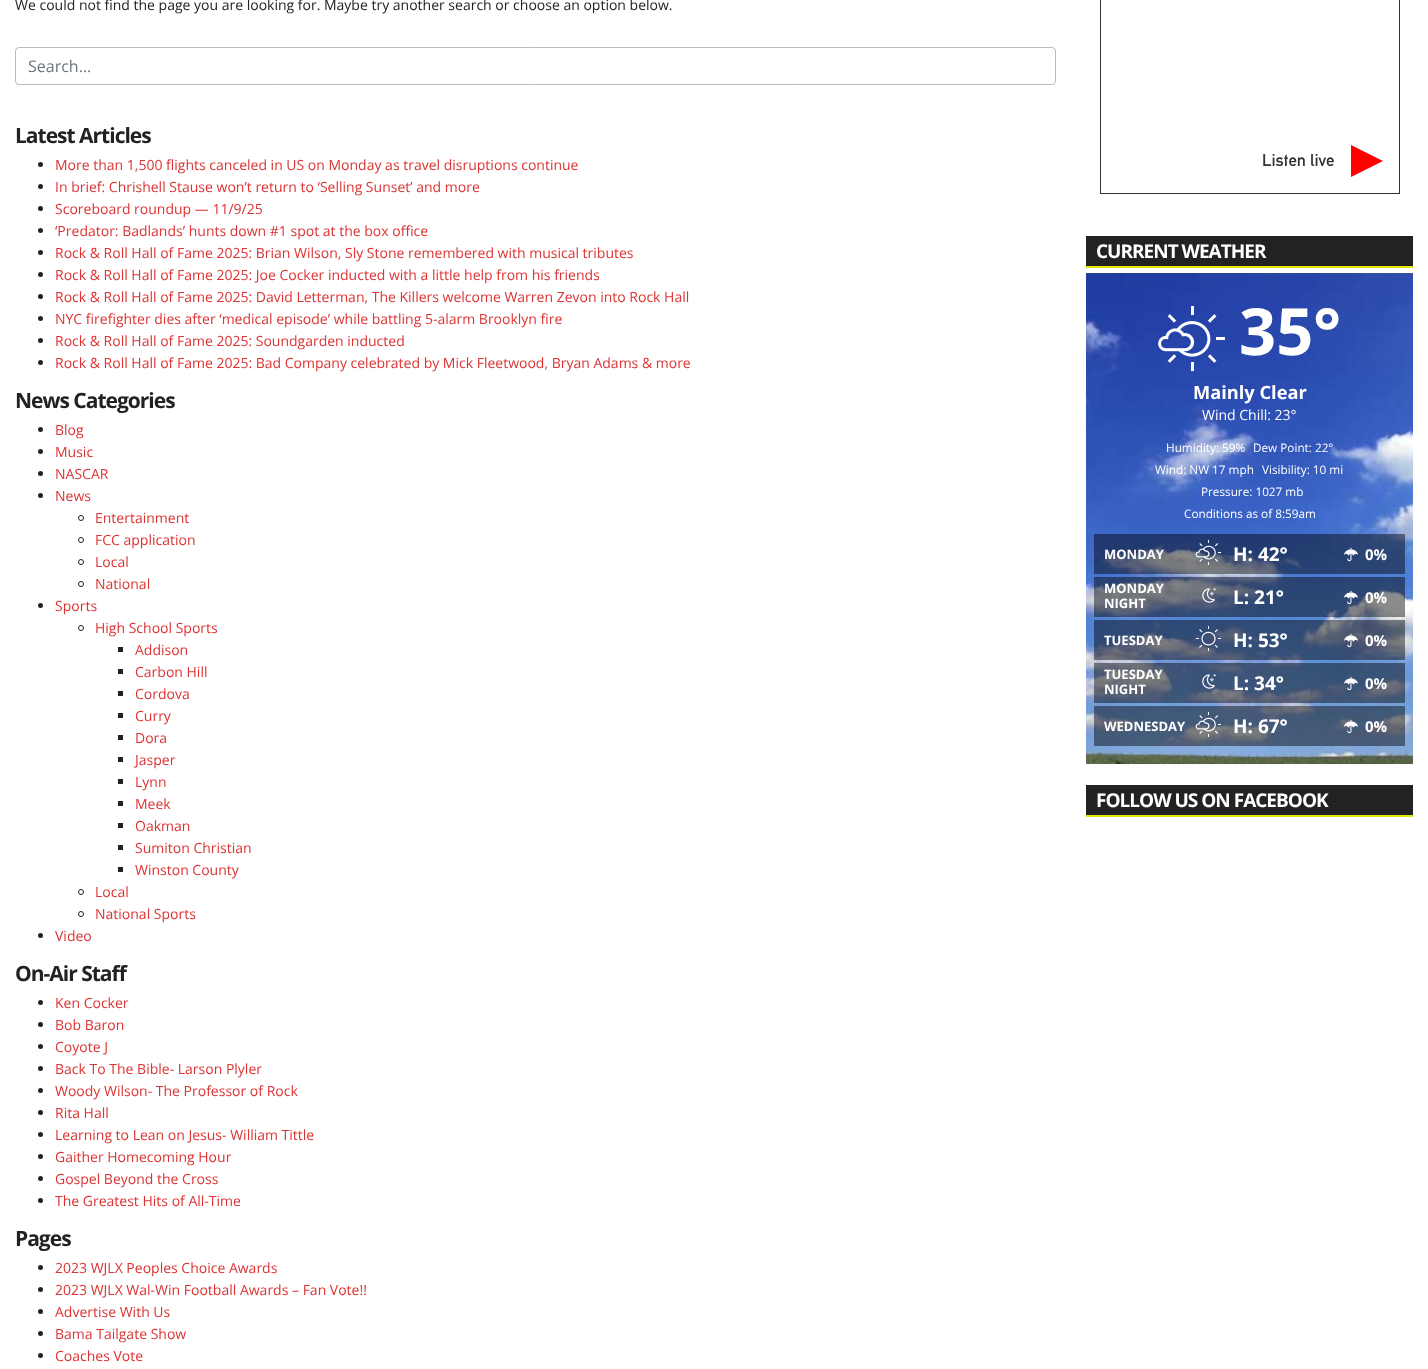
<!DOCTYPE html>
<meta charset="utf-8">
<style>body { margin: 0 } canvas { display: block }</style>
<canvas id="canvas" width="1428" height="1369"></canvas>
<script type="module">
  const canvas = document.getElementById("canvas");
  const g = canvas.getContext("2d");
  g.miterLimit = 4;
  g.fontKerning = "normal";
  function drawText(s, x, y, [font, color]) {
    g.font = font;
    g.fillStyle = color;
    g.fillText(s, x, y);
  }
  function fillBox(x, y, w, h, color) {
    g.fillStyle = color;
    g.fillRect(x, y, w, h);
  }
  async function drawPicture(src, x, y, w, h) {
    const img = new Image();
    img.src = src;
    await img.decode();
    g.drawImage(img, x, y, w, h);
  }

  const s1 = ["14px Open Sans", "#222222"];
  const s2 = ["16px Open Sans", "#6C757D"];
  const s3 = ["bold 21px Open Sans", "#222222"];
  const s4 = ["14px Open Sans", "#DD3333"];
  const s5 = ["17px 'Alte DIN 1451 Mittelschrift'", "#333333"];
  const s6 = ["bold 19px Open Sans", "#FFFFFF"];
  const s7 = ["bold 65px Open Sans", "#FFFFFF"];
  const s8 = ["bold 18.25px Open Sans", "#FFFFFF"];
  const s9 = ["14px Open Sans", "#FFFFFF"];
  const s10 = ["11.75px Open Sans", "#FFFFFF"];
  const s11 = ["bold 13px Open Sans", "#FFFFFF"];
  const s12 = ["bold 15px Open Sans", "#FFFFFF"];

  fillBox(0, 0, 1428, 1369, "#FFFFFF");
  drawText("We could not find the page you are looking for. Maybe try another search or choose an option below.", 15, 10, s1);
  g.beginPath();
  g.roundRect(15.5, 47.5, 1040, 37, 3.5);
  g.strokeStyle = "#BBBBBB";
  g.stroke();
  drawText("Search…", 28, 72, s2);
  g.letterSpacing = "-1px";
  drawText("Latest Articles", 15, 143, s3);
  g.beginPath();
  g.arc(40.5, 164.5, 2.5, 0, Math.PI * 2);
  g.fill();
  g.letterSpacing = "0px";
  drawText("More than 1,500 flights canceled in US on Monday as travel disruptions continue", 55, 170, s4);
  g.fillStyle = "#222222";
  g.beginPath();
  g.arc(40.5, 186.5, 2.5, 0, Math.PI * 2);
  g.fill();
  drawText("In brief: Chrishell Stause won’t return to ‘Selling Sunset’ and more", 55, 192, s4);
  g.fillStyle = "#222222";
  g.beginPath();
  g.arc(40.5, 208.5, 2.5, 0, Math.PI * 2);
  g.fill();
  drawText("Scoreboard roundup — 11/9/25", 55, 214, s4);
  g.fillStyle = "#222222";
  g.beginPath();
  g.arc(40.5, 230.5, 2.5, 0, Math.PI * 2);
  g.fill();
  drawText("‘Predator: Badlands’ hunts down #1 spot at the box office", 55, 236, s4);
  g.fillStyle = "#222222";
  g.beginPath();
  g.arc(40.5, 252.5, 2.5, 0, Math.PI * 2);
  g.fill();
  drawText("Rock & Roll Hall of Fame 2025: Brian Wilson, Sly Stone remembered with musical tributes", 55, 258, s4);
  g.fillStyle = "#222222";
  g.beginPath();
  g.arc(40.5, 274.5, 2.5, 0, Math.PI * 2);
  g.fill();
  drawText("Rock & Roll Hall of Fame 2025: Joe Cocker inducted with a little help from his friends", 55, 280, s4);
  g.fillStyle = "#222222";
  g.beginPath();
  g.arc(40.5, 296.5, 2.5, 0, Math.PI * 2);
  g.fill();
  drawText("Rock & Roll Hall of Fame 2025: David Letterman, The Killers welcome Warren Zevon into Rock Hall", 55, 302, s4);
  g.fillStyle = "#222222";
  g.beginPath();
  g.arc(40.5, 318.5, 2.5, 0, Math.PI * 2);
  g.fill();
  drawText("NYC firefighter dies after ‘medical episode’ while battling 5-alarm Brooklyn fire", 55, 324, s4);
  g.fillStyle = "#222222";
  g.beginPath();
  g.arc(40.5, 340.5, 2.5, 0, Math.PI * 2);
  g.fill();
  drawText("Rock & Roll Hall of Fame 2025: Soundgarden inducted", 55, 346, s4);
  g.fillStyle = "#222222";
  g.beginPath();
  g.arc(40.5, 362.5, 2.5, 0, Math.PI * 2);
  g.fill();
  drawText("Rock & Roll Hall of Fame 2025: Bad Company celebrated by Mick Fleetwood, Bryan Adams & more", 55, 368, s4);
  g.letterSpacing = "-1px";
  drawText("News Categories", 15, 408, s3);
  g.beginPath();
  g.arc(40.5, 429.5, 2.5, 0, Math.PI * 2);
  g.fill();
  g.letterSpacing = "0px";
  drawText("Blog", 55, 435, s4);
  g.fillStyle = "#222222";
  g.beginPath();
  g.arc(40.5, 451.5, 2.5, 0, Math.PI * 2);
  g.fill();
  drawText("Music", 55, 457, s4);
  g.fillStyle = "#222222";
  g.beginPath();
  g.arc(40.5, 473.5, 2.5, 0, Math.PI * 2);
  g.fill();
  drawText("NASCAR", 55, 479, s4);
  g.fillStyle = "#222222";
  g.beginPath();
  g.arc(40.5, 495.5, 2.5, 0, Math.PI * 2);
  g.fill();
  drawText("News", 55, 501, s4);
  g.beginPath();
  g.arc(81, 518, 2.5, 0, Math.PI * 2);
  g.strokeStyle = "#222222";
  g.stroke();
  drawText("Entertainment", 95, 523, s4);
  g.beginPath();
  g.arc(81, 540, 2.5, 0, Math.PI * 2);
  g.stroke();
  drawText("FCC application", 95, 545, s4);
  g.beginPath();
  g.arc(81, 562, 2.5, 0, Math.PI * 2);
  g.stroke();
  drawText("Local", 95, 567, s4);
  g.beginPath();
  g.arc(81, 584, 2.5, 0, Math.PI * 2);
  g.stroke();
  drawText("National", 95, 589, s4);
  g.fillStyle = "#222222";
  g.beginPath();
  g.arc(40.5, 605.5, 2.5, 0, Math.PI * 2);
  g.fill();
  drawText("Sports", 55, 611, s4);
  g.beginPath();
  g.arc(81, 628, 2.5, 0, Math.PI * 2);
  g.stroke();
  drawText("High School Sports", 95, 633, s4);
  fillBox(118, 647, 5, 5, "#222222");
  drawText("Addison", 135, 655, s4);
  fillBox(118, 669, 5, 5, "#222222");
  drawText("Carbon Hill", 135, 677, s4);
  fillBox(118, 691, 5, 5, "#222222");
  drawText("Cordova", 135, 699, s4);
  fillBox(118, 713, 5, 5, "#222222");
  drawText("Curry", 135, 721, s4);
  fillBox(118, 735, 5, 5, "#222222");
  drawText("Dora", 135, 743, s4);
  fillBox(118, 757, 5, 5, "#222222");
  drawText("Jasper", 135, 765, s4);
  fillBox(118, 779, 5, 5, "#222222");
  drawText("Lynn", 135, 787, s4);
  fillBox(118, 801, 5, 5, "#222222");
  drawText("Meek", 135, 809, s4);
  fillBox(118, 823, 5, 5, "#222222");
  drawText("Oakman", 135, 831, s4);
  fillBox(118, 845, 5, 5, "#222222");
  drawText("Sumiton Christian", 135, 853, s4);
  fillBox(118, 867, 5, 5, "#222222");
  drawText("Winston County", 135, 875, s4);
  g.beginPath();
  g.arc(81, 892, 2.5, 0, Math.PI * 2);
  g.stroke();
  drawText("Local", 95, 897, s4);
  g.beginPath();
  g.arc(81, 914, 2.5, 0, Math.PI * 2);
  g.stroke();
  drawText("National Sports", 95, 919, s4);
  g.fillStyle = "#222222";
  g.beginPath();
  g.arc(40.5, 935.5, 2.5, 0, Math.PI * 2);
  g.fill();
  drawText("Video", 55, 941, s4);
  g.letterSpacing = "-1px";
  drawText("On-Air Staff", 15, 981, s3);
  g.beginPath();
  g.arc(40.5, 1002.5, 2.5, 0, Math.PI * 2);
  g.fill();
  g.letterSpacing = "0px";
  drawText("Ken Cocker", 55, 1008, s4);
  g.fillStyle = "#222222";
  g.beginPath();
  g.arc(40.5, 1024.5, 2.5, 0, Math.PI * 2);
  g.fill();
  drawText("Bob Baron", 55, 1030, s4);
  g.fillStyle = "#222222";
  g.beginPath();
  g.arc(40.5, 1046.5, 2.5, 0, Math.PI * 2);
  g.fill();
  drawText("Coyote J", 55, 1052, s4);
  g.fillStyle = "#222222";
  g.beginPath();
  g.arc(40.5, 1068.5, 2.5, 0, Math.PI * 2);
  g.fill();
  drawText("Back To The Bible- Larson Plyler", 55, 1074, s4);
  g.fillStyle = "#222222";
  g.beginPath();
  g.arc(40.5, 1090.5, 2.5, 0, Math.PI * 2);
  g.fill();
  drawText("Woody Wilson- The Professor of Rock", 55, 1096, s4);
  g.fillStyle = "#222222";
  g.beginPath();
  g.arc(40.5, 1112.5, 2.5, 0, Math.PI * 2);
  g.fill();
  drawText("Rita Hall", 55, 1118, s4);
  g.fillStyle = "#222222";
  g.beginPath();
  g.arc(40.5, 1134.5, 2.5, 0, Math.PI * 2);
  g.fill();
  drawText("Learning to Lean on Jesus- William Tittle", 55, 1140, s4);
  g.fillStyle = "#222222";
  g.beginPath();
  g.arc(40.5, 1156.5, 2.5, 0, Math.PI * 2);
  g.fill();
  drawText("Gaither Homecoming Hour", 55, 1162, s4);
  g.fillStyle = "#222222";
  g.beginPath();
  g.arc(40.5, 1178.5, 2.5, 0, Math.PI * 2);
  g.fill();
  drawText("Gospel Beyond the Cross", 55, 1184, s4);
  g.fillStyle = "#222222";
  g.beginPath();
  g.arc(40.5, 1200.5, 2.5, 0, Math.PI * 2);
  g.fill();
  drawText("The Greatest Hits of All-Time", 55, 1206, s4);
  g.letterSpacing = "-1px";
  drawText("Pages", 15, 1246, s3);
  g.beginPath();
  g.arc(40.5, 1267.5, 2.5, 0, Math.PI * 2);
  g.fill();
  g.letterSpacing = "0px";
  drawText("2023 WJLX Peoples Choice Awards", 55, 1273, s4);
  g.fillStyle = "#222222";
  g.beginPath();
  g.arc(40.5, 1289.5, 2.5, 0, Math.PI * 2);
  g.fill();
  drawText("2023 WJLX Wal-Win Football Awards – Fan Vote!!", 55, 1295, s4);
  g.fillStyle = "#222222";
  g.beginPath();
  g.arc(40.5, 1311.5, 2.5, 0, Math.PI * 2);
  g.fill();
  drawText("Advertise With Us", 55, 1317, s4);
  g.fillStyle = "#222222";
  g.beginPath();
  g.arc(40.5, 1333.5, 2.5, 0, Math.PI * 2);
  g.fill();
  drawText("Bama Tailgate Show", 55, 1339, s4);
  g.fillStyle = "#222222";
  g.beginPath();
  g.arc(40.5, 1355.5, 2.5, 0, Math.PI * 2);
  g.fill();
  drawText("Coaches Vote", 55, 1361, s4);
  g.strokeStyle = "#333333";
  g.strokeRect(1100.5, -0.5, 299, 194);
  drawText("Listen live", 1262, 166, s5);
  g.fillStyle = "#FF0000";
  g.beginPath();
  g.moveTo(1351, 177);
  g.lineTo(1351, 145);
  g.lineTo(1383, 161);
  g.closePath();
  g.fill();
  fillBox(1086, 236, 327, 30, "#222222");
  fillBox(1086, 266, 327, 2, "#E6E905");
  g.letterSpacing = "-1px";
  drawText("CURRENT WEATHER", 1096, 258, s6);
  await drawPicture("pic1.png", 1086, 273, 327, 491);
  await drawPicture("pic2.png", 1158, 306, 67, 65);
  g.letterSpacing = "0px";
  drawText("35°", 1239, 355, s7);
  drawText("Mainly Clear", 1193, 399, s8);
  drawText("Wind Chill: 23°", 1202, 420, s9);
  drawText("Humidity: 59%", 1166, 452, s10);
  drawText("Dew Point: 22°", 1253, 452, s10);
  drawText("Wind: NW 17 mph", 1155, 474, s10);
  drawText("Visibility: 10 mi", 1262, 474, s10);
  drawText("Pressure: 1027 mb", 1201, 496, s10);
  drawText("Conditions as of 8:59am", 1184, 518, s10);
  fillBox(1094, 534, 311, 40, "rgba(0, 0, 0, 0.45)");
  drawText("MONDAY", 1104, 559, s11);
  await drawPicture("pic3.png", 1195, 540, 26, 25);
  drawText("H: 42°", 1233, 561, s6);
  await drawPicture("pic4.png", 1344, 547, 14, 15);
  drawText("0%", 1365, 560, s12);
  fillBox(1094, 577, 311, 40, "rgba(0, 0, 0, 0.45)");
  drawText("MONDAY", 1104, 593, s11);
  drawText("NIGHT", 1104, 608, s11);
  await drawPicture("pic5.png", 1202, 588, 15, 15);
  drawText("L: 21°", 1233, 604, s6);
  await drawPicture("pic6.png", 1344, 590, 14, 15);
  drawText("0%", 1365, 603, s12);
  fillBox(1094, 620, 311, 40, "rgba(0, 0, 0, 0.45)");
  drawText("TUESDAY", 1104, 645, s11);
  await drawPicture("pic7.png", 1196, 626, 25, 25);
  drawText("H: 53°", 1233, 647, s6);
  await drawPicture("pic8.png", 1344, 633, 14, 15);
  drawText("0%", 1365, 646, s12);
  fillBox(1094, 663, 311, 40, "rgba(0, 0, 0, 0.45)");
  drawText("TUESDAY", 1104, 679, s11);
  drawText("NIGHT", 1104, 694, s11);
  await drawPicture("pic9.png", 1202, 674, 15, 15);
  drawText("L: 34°", 1233, 690, s6);
  await drawPicture("pic10.png", 1344, 676, 14, 15);
  drawText("0%", 1365, 689, s12);
  fillBox(1094, 706, 311, 40, "rgba(0, 0, 0, 0.45)");
  drawText("WEDNESDAY", 1104, 731, s11);
  await drawPicture("pic11.png", 1195, 712, 26, 25);
  drawText("H: 67°", 1233, 733, s6);
  await drawPicture("pic12.png", 1344, 719, 14, 15);
  drawText("0%", 1365, 732, s12);
  fillBox(1086, 785, 327, 30, "#222222");
  fillBox(1086, 815, 327, 2, "#E6E905");
  g.letterSpacing = "-1px";
  drawText("FOLLOW US ON FACEBOOK", 1096, 807, s6);
</script>
